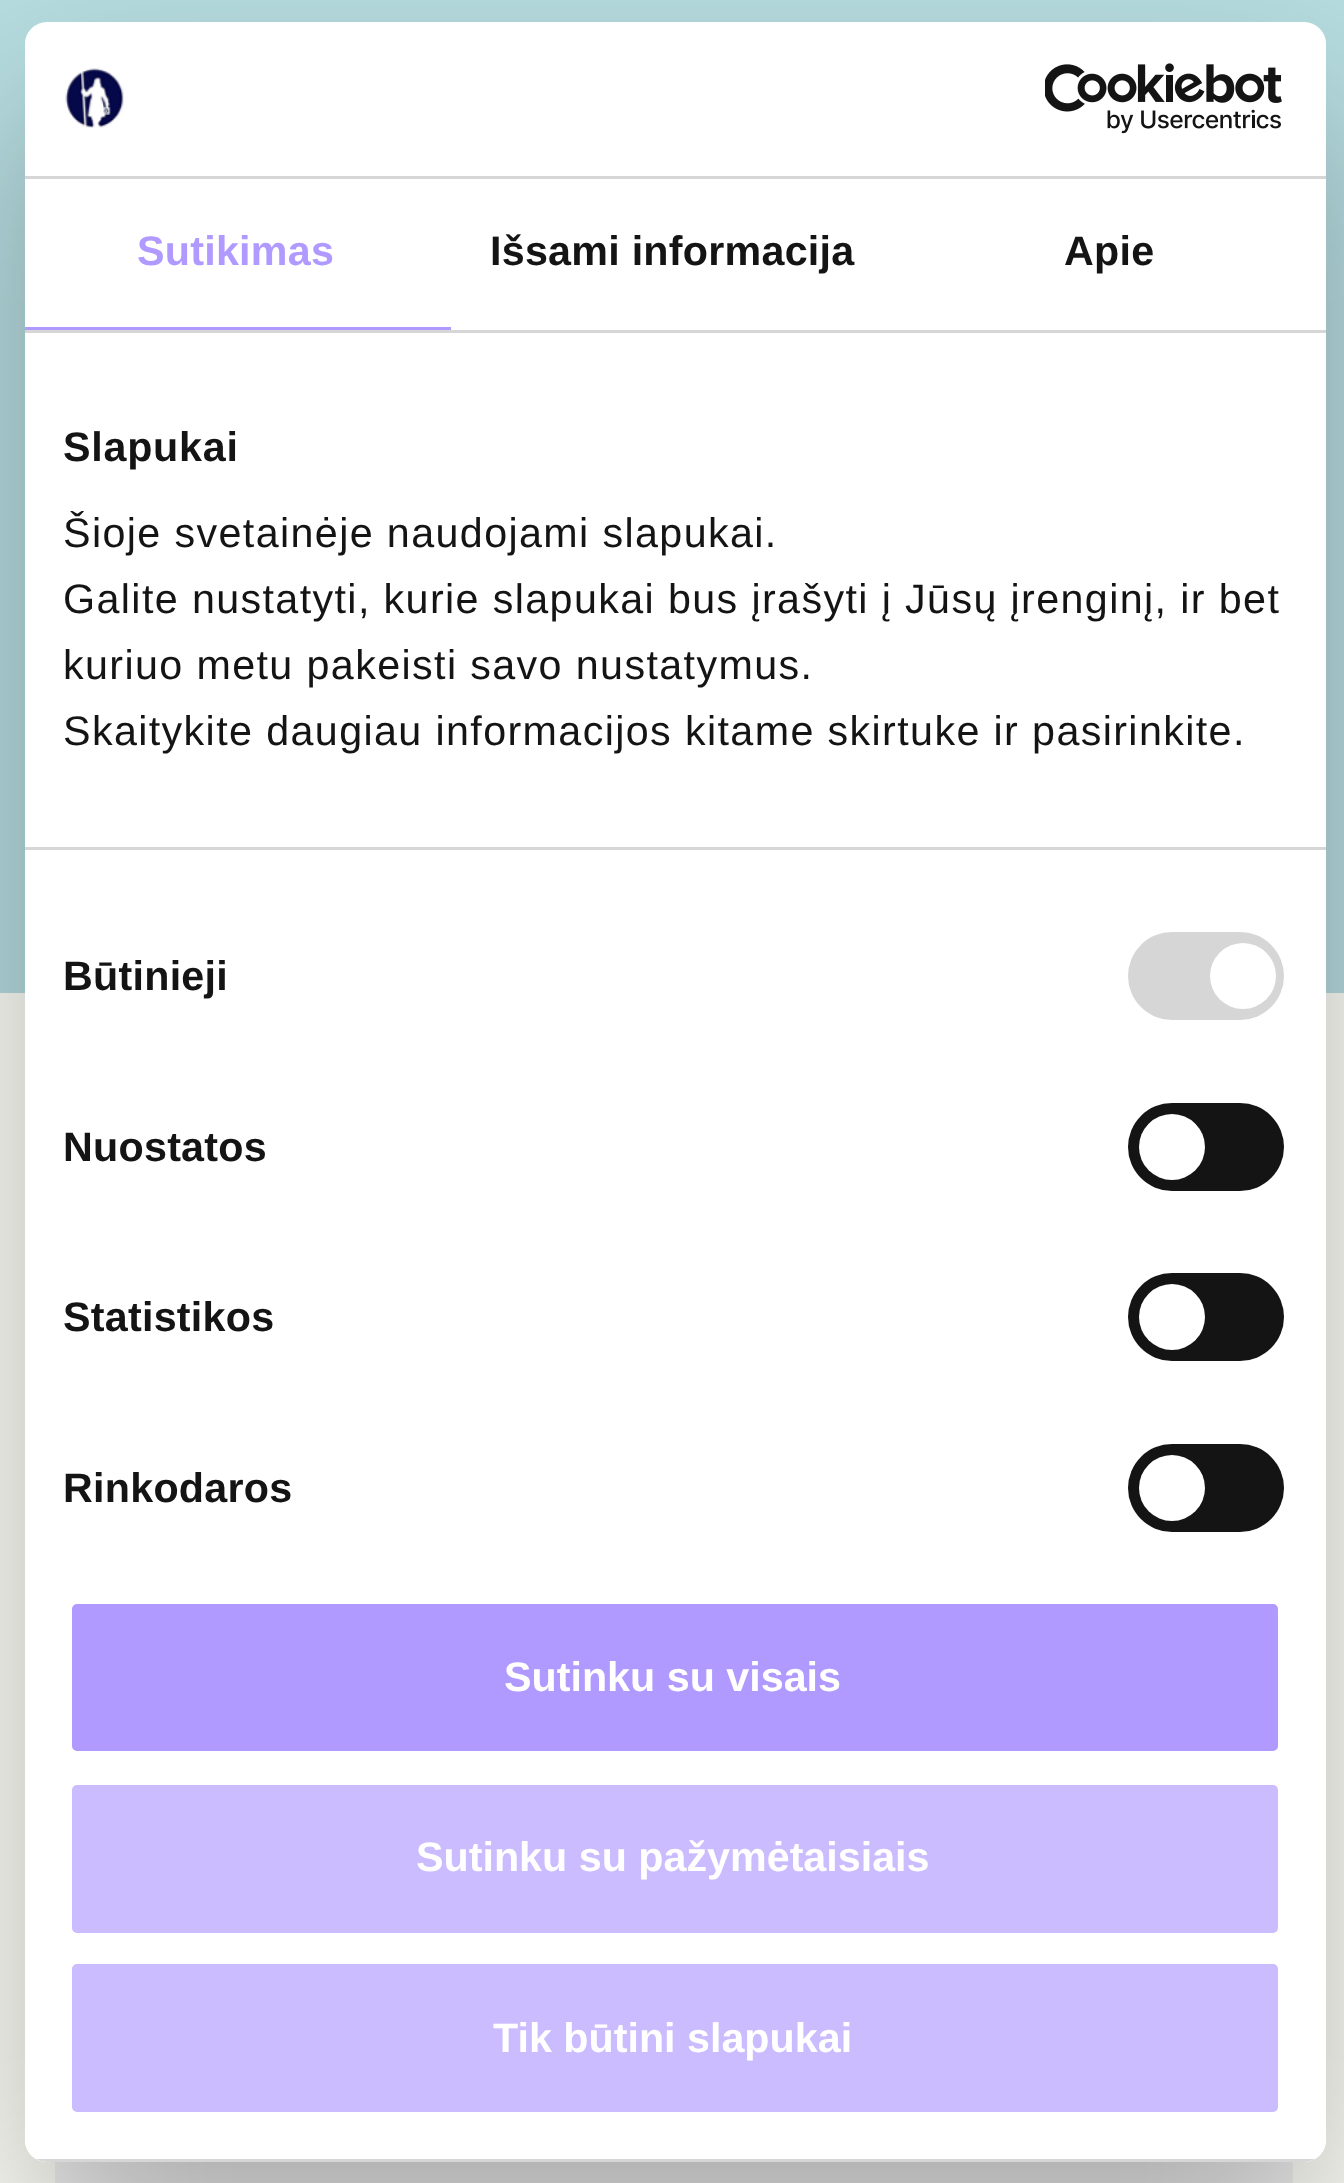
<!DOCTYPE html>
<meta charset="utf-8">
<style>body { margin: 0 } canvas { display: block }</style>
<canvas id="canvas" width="1344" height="2183"></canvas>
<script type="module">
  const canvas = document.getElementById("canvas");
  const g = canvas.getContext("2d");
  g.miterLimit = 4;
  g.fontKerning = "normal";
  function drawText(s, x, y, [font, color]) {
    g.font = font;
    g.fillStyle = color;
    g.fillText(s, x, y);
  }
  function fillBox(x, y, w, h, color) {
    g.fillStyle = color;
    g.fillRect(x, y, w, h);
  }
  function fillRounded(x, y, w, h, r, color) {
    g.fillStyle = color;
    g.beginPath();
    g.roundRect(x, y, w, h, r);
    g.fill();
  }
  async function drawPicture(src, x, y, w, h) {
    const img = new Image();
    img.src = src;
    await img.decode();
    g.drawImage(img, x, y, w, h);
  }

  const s1 = ["bold 41.25px Liberation Sans", "#B099FF"];
  const s2 = ["bold 41.25px Liberation Sans", "#141414"];
  const s3 = ["41.25px Liberation Sans", "#141414"];
  const s4 = ["bold 41.25px Liberation Sans", "#FFFFFF"];

  fillBox(0, 0, 1344, 2183, "#FFFFFA");
  fillBox(0, 0, 1344, 993, "#B8DEE2");
  fillBox(55, 2162, 1238, 21, "#F2F2F3");
  g.save();
  g.beginPath();
  g.moveTo(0, 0);
  g.lineTo(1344, 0);
  g.lineTo(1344, 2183);
  g.lineTo(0, 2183);
  g.closePath();
  g.moveTo(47, 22);
  g.lineTo(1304, 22);
  g.bezierCurveTo(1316, 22, 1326, 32, 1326, 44);
  g.lineTo(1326, 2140);
  g.bezierCurveTo(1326, 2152, 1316, 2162, 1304, 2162);
  g.lineTo(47, 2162);
  g.bezierCurveTo(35, 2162, 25, 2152, 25, 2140);
  g.lineTo(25, 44);
  g.bezierCurveTo(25, 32, 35, 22, 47, 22);
  g.closePath();
  g.clip("evenodd");
  g.fillStyle = "rgba(0, 0, 0, 0.3)";
  g.filter = "blur(93.5px)";
  g.beginPath();
  g.roundRect(25, 110, 1301, 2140, 22);
  g.fill();
  g.filter = "none";
  g.restore();
  fillRounded(25, 22, 1301, 2140, 22, "#FFFFFF");
  fillBox(25, 176, 1301, 3, "#D6D6D6");
  await drawPicture("pic1.png", 65, 68, 59, 60);
  await drawPicture("pic2.png", 1045, 63, 237, 71);
  fillBox(25, 330, 1301, 3, "#D6D6D6");
  fillBox(25, 327, 426, 3, "#B099FF");
  g.letterSpacing = "0.25px";
  drawText("Sutikimas", 137, 265, s1);
  drawText("Išsami informacija", 490, 265, s2);
  drawText("Apie", 1064, 265, s2);
  fillBox(25, 847, 1301, 3, "#D6D6D6");
  g.letterSpacing = "0.75px";
  drawText("Slapukai", 63, 461, s2);
  g.letterSpacing = "1.38px";
  drawText("Šioje svetainėje naudojami slapukai.", 63, 547, s3);
  drawText("Galite nustatyti, kurie slapukai bus įrašyti į Jūsų įrenginį, ir bet", 63, 613, s3);
  drawText("kuriuo metu pakeisti savo nustatymus.", 63, 679, s3);
  drawText("Skaitykite daugiau informacijos kitame skirtuke ir pasirinkite.", 63, 745, s3);
  g.letterSpacing = "0.25px";
  drawText("Būtinieji", 63, 990, s2);
  fillRounded(1128, 932, 156, 88, 44, "#D6D6D6");
  g.fillStyle = "#FFFFFF";
  g.beginPath();
  g.arc(1243, 976, 33, 0, Math.PI * 2);
  g.fill();
  drawText("Nuostatos", 63, 1161, s2);
  fillRounded(1128, 1103, 156, 88, 44, "#141414");
  g.fillStyle = "#FFFFFF";
  g.beginPath();
  g.arc(1172, 1147, 33, 0, Math.PI * 2);
  g.fill();
  drawText("Statistikos", 63, 1331, s2);
  fillRounded(1128, 1273, 156, 88, 44, "#141414");
  g.fillStyle = "#FFFFFF";
  g.beginPath();
  g.arc(1172, 1317, 33, 0, Math.PI * 2);
  g.fill();
  drawText("Rinkodaros", 63, 1502, s2);
  fillRounded(1128, 1444, 156, 88, 44, "#141414");
  g.fillStyle = "#FFFFFF";
  g.beginPath();
  g.arc(1172, 1488, 33, 0, Math.PI * 2);
  g.fill();
  g.save();
  g.beginPath();
  g.roundRect(25, 22, 1301, 2140, 22);
  g.clip();
  fillBox(36, 2159, 1279, 3, "#D6D6D6");
  g.restore();
  g.fillStyle = "#B099FF";
  g.beginPath();
  g.roundRect(69, 1601, 1212, 153, 8);
  g.fill();
  g.strokeStyle = "#FFFFFF";
  g.lineWidth = 6;
  g.stroke();
  g.letterSpacing = "0px";
  drawText("Sutinku su visais", 504, 1691, s4);
  g.fillStyle = "#CBBBFF";
  g.beginPath();
  g.roundRect(69, 1782, 1212, 154, 8);
  g.fill();
  g.stroke();
  drawText("Sutinku su pažymėtaisiais", 416, 1871, s4);
  g.fillStyle = "#CBBBFF";
  g.beginPath();
  g.roundRect(69, 1961, 1212, 154, 8);
  g.fill();
  g.stroke();
  drawText("Tik būtini slapukai", 493, 2052, s4);
</script>
